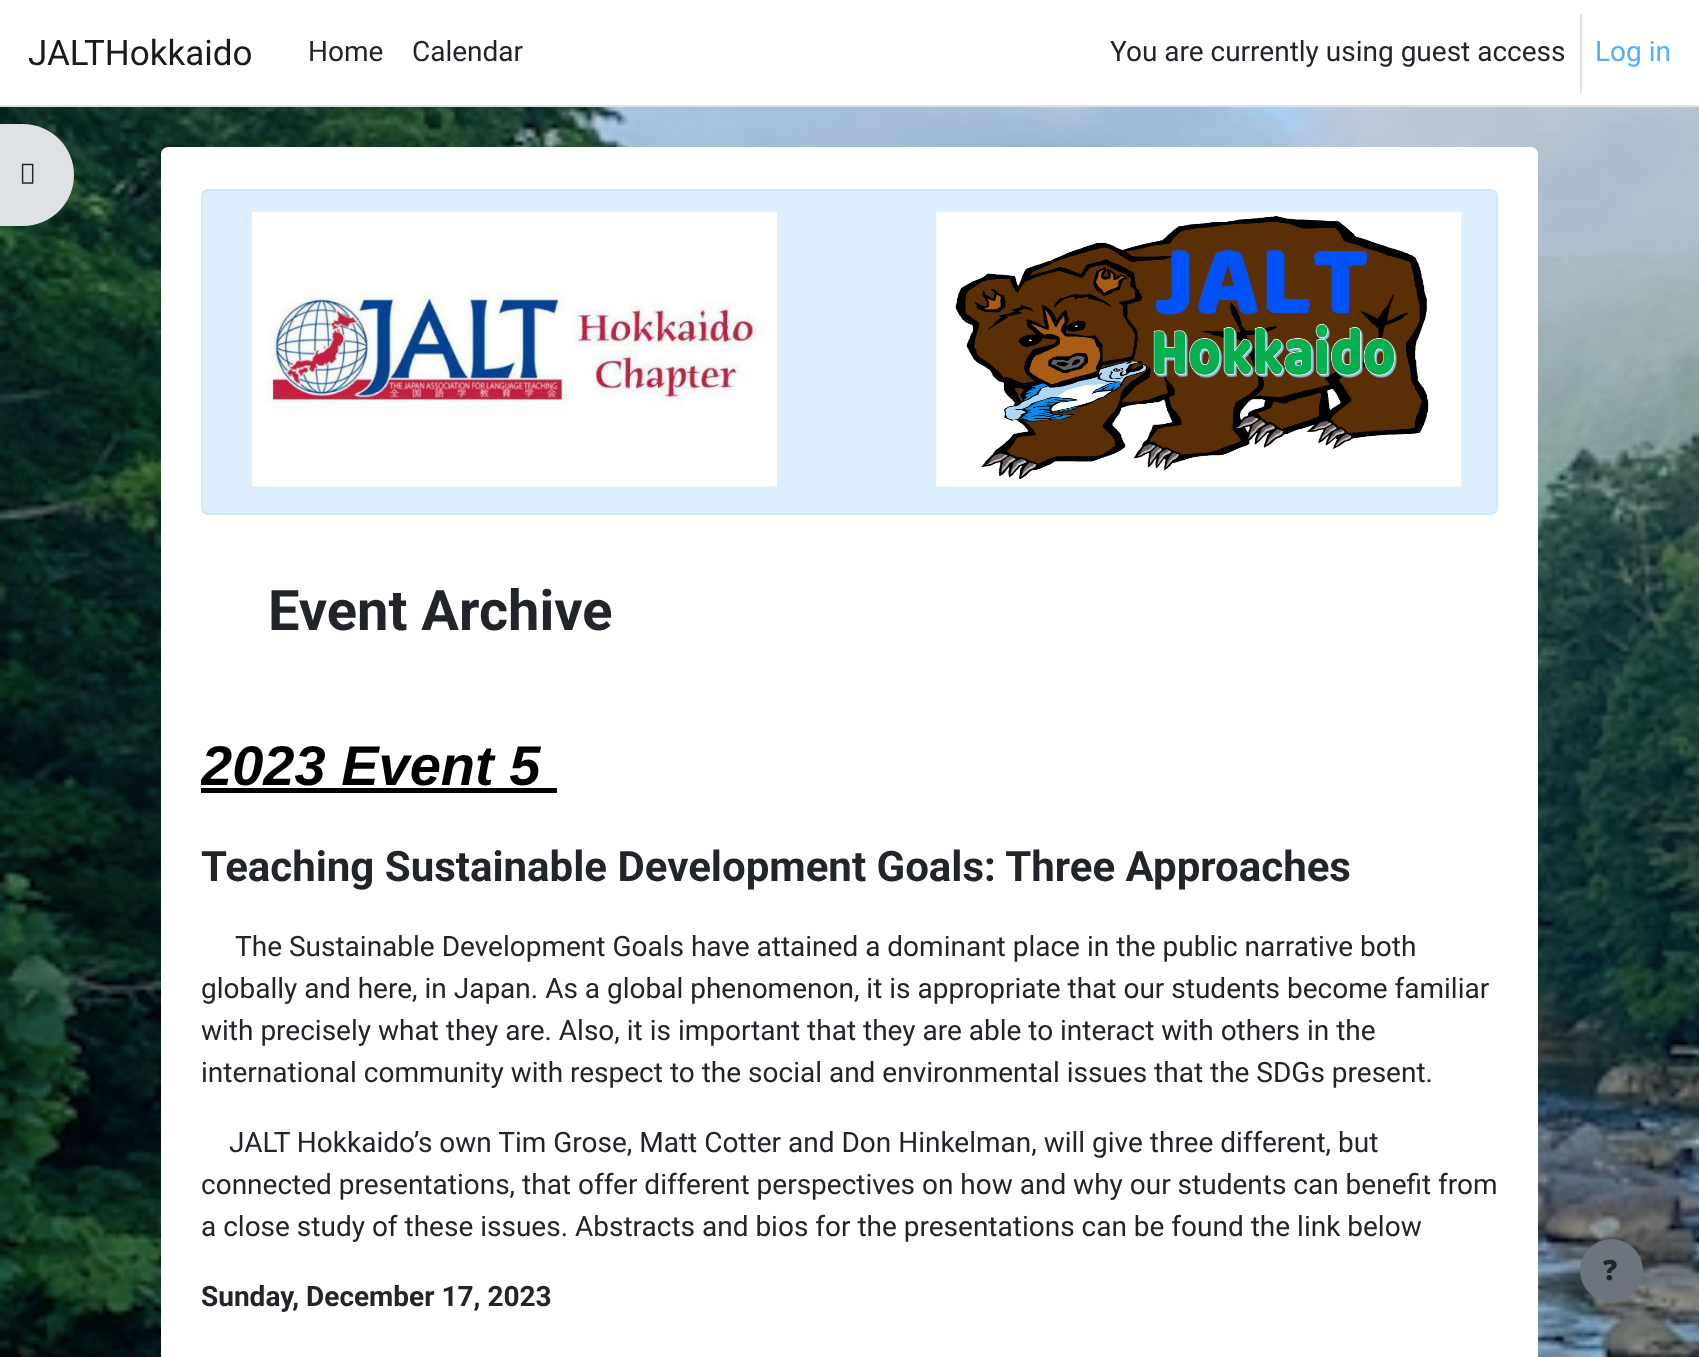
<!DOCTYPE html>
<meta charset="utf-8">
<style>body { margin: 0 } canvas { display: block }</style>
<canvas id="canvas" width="1699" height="1357"></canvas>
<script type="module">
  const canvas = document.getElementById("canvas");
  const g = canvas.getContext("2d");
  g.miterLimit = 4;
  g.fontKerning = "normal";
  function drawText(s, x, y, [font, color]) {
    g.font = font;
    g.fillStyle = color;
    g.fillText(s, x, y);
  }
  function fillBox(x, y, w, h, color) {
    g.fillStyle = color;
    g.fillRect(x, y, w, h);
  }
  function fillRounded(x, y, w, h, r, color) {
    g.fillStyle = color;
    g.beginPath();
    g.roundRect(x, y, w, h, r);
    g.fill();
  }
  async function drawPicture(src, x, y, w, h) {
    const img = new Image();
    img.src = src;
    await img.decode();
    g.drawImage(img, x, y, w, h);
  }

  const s1 = ["35px Roboto", "#1A1A1A"];
  const s2 = ["28px Roboto", "#212529"];
  const s3 = ["28px Roboto", "#55ADFB"];
  const s4 = ["bold 56px Roboto", "#212529"];
  const s5 = ["italic bold 56px Liberation Sans", "#000000"];
  const s6 = ["bold 42px Roboto", "#212529"];
  const s7 = ["bold 28px Roboto", "#212529"];
  const s8 = ["900 28px Noto Sans", "#212529"];

  fillBox(0, 0, 1699, 1357, "#FFFFFF");
  await drawPicture("pic1.png", 0, 107, 1699, 1250);
  fillBox(0, 105, 1699, 2, "#DEE2E6");
  drawText("JALTHokkaido", 28, 65, s1);
  drawText("Home", 308, 61, s2);
  drawText("Calendar", 412, 61, s2);
  drawText("You are currently using guest access", 1110, 61, s2);
  fillBox(1580, 14, 2, 79, "#DEE2E6");
  drawText("Log in", 1595, 61, s3);
  fillRounded(161, 147, 1377, 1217, 7, "#FFFFFF");
  g.fillStyle = "#DEE2E6";
  g.beginPath();
  g.roundRect(0, 124, 74, 102, [0, 51, 51, 0]);
  g.fill();
  await drawPicture("pic2.png", 21, 163, 13, 21);
  g.fillStyle = "#DDEFFE";
  g.beginPath();
  g.roundRect(202, 190, 1295, 324, 6);
  g.fill();
  g.strokeStyle = "#CFE8FE";
  g.lineWidth = 2;
  g.stroke();
  await drawPicture("pic3.png", 252, 211, 525, 276);
  await drawPicture("pic4.png", 936, 211, 526, 276);
  drawText("Event Archive", 268, 630, s4);
  g.save();
  g.beginPath();
  g.rect(201, 723, 1297, 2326);
  g.clip();
  drawText("2023 Event 5", 201, 785, s5);
  g.restore();
  fillBox(201, 788, 356, 5, "#000000");
  drawText("Teaching Sustainable Development Goals: Three Approaches", 201, 881, s6);
  drawText("The Sustainable Development Goals have attained a dominant place in the public narrative both", 235, 956, s2);
  drawText("globally and here, in Japan. As a global phenomenon, it is appropriate that our students become familiar", 201, 998, s2);
  drawText("with precisely what they are. Also, it is important that they are able to interact with others in the", 201, 1040, s2);
  drawText("international community with respect to the social and environmental issues that the SDGs present.", 201, 1082, s2);
  drawText("JALT Hokkaido’s own Tim Grose, Matt Cotter and Don Hinkelman, will give three different, but", 229, 1152, s2);
  drawText("connected presentations, that offer different perspectives on how and why our students can benefit from", 201, 1194, s2);
  drawText("a close study of these issues. Abstracts and bios for the presentations can be found the link below", 201, 1236, s2);
  drawText("Sunday, December 17, 2023", 201, 1306, s7);
  g.fillStyle = "#6C757D";
  g.beginPath();
  g.arc(1611.5, 1270.5, 31.5, 0, Math.PI * 2);
  g.fill();
  drawText("?", 1603, 1280, s8);
</script>
